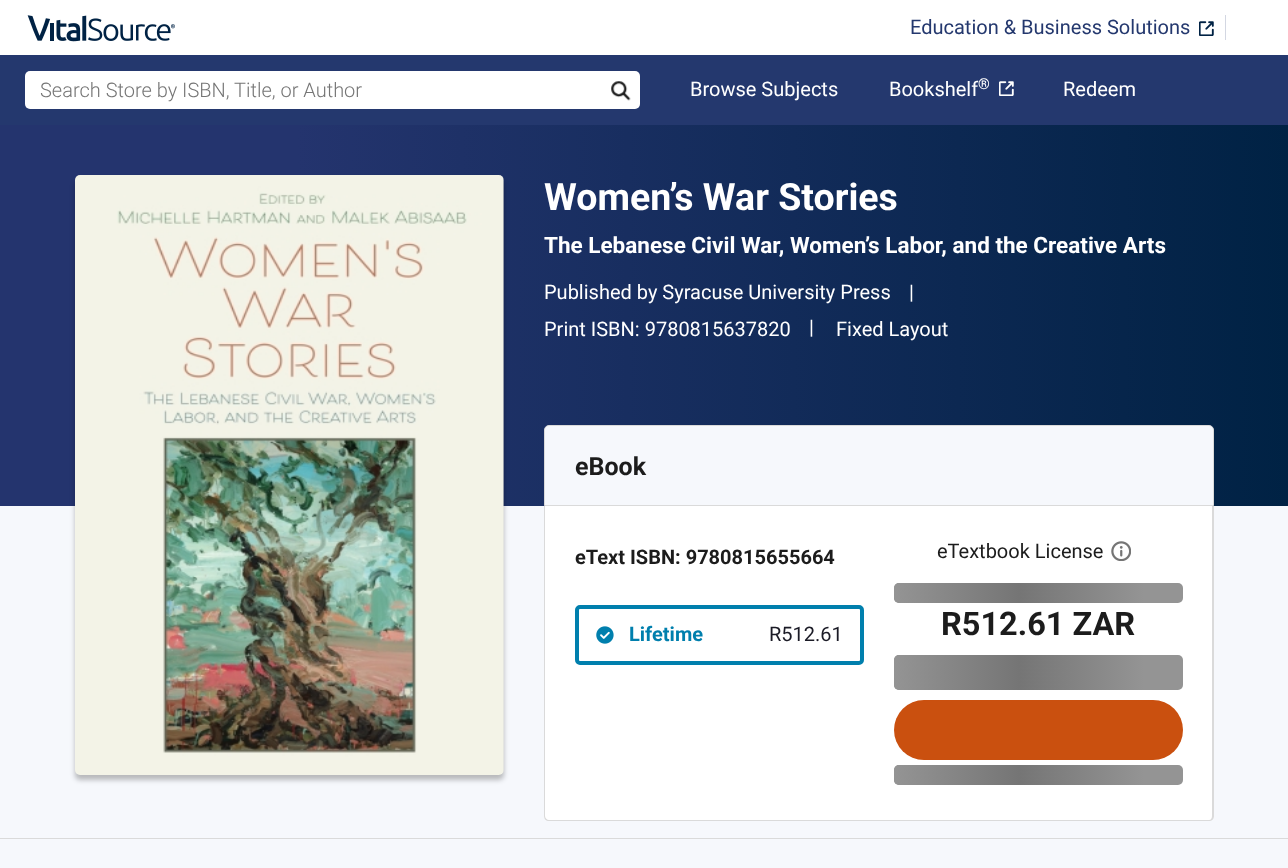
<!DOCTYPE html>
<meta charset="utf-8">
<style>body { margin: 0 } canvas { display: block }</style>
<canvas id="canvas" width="1288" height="868"></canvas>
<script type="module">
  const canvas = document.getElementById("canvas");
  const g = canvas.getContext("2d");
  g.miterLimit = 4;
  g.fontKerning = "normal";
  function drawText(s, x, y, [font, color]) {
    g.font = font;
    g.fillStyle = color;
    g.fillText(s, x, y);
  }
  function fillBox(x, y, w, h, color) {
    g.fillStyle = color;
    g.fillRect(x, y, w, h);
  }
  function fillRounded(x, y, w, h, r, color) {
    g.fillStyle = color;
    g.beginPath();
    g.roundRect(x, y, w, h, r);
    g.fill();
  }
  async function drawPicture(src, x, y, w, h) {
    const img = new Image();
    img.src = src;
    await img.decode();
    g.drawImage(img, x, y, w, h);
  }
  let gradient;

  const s1 = ["20px Roboto", "#24386E"];
  const s2 = ["300 20px Roboto", "#757575"];
  const s3 = ["20px Roboto", "#FFFFFF"];
  const s4 = ["15px Roboto", "#FFFFFF"];
  const s5 = ["bold 37.5px Roboto", "#FFFFFF"];
  const s6 = ["bold 22.5px Roboto", "#FFFFFF"];
  const s7 = ["bold 25px Roboto", "#1C1C1C"];
  const s8 = ["bold 20px Roboto", "#1C1C1C"];
  const s9 = ["bold 20px Roboto", "#007FAD"];
  const s10 = ["20px Roboto", "#1B1B26"];
  const s11 = ["20px Roboto", "#1C1C1C"];
  const s12 = ["bold 32.5px Roboto", "#1C1C1C"];

  fillBox(0, 0, 1288, 868, "#FFFFFF");
  await drawPicture("pic1.png", 27, 15, 148, 27);
  drawText("Education & Business Solutions", 910, 34, s1);
  await drawPicture("pic2.png", 1199, 21, 15, 15);
  fillBox(1225, 15, 1, 25, "#D3D7E2");
  fillBox(0, 55, 1288, 70, "#24386E");
  fillRounded(25, 71, 615, 38, 5, "#FFFFFF");
  drawText("Search Store by ISBN, Title, or Author", 40, 97, s2);
  await drawPicture("pic3.png", 611, 81, 20, 20);
  drawText("Browse Subjects", 690, 96, s3);
  drawText("Bookshelf", 889, 96, s3);
  drawText("®", 978, 89, s4);
  await drawPicture("pic4.png", 999, 81, 15, 15);
  drawText("Redeem", 1063, 96, s3);
  fillBox(0, 506, 1288, 332, "#F6F8FC");
  gradient = g.createLinearGradient(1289, 316, 0, 316);
  gradient.addColorStop(0, "#002244");
  gradient.addColorStop(0.77, "#24346E");
  g.fillStyle = gradient;
  g.fillRect(0, 125, 1288, 381);
  g.fillStyle = "rgba(0, 0, 0, 0.25)";
  g.filter = "blur(2.5px)";
  g.beginPath();
  g.roundRect(75, 180, 429, 600, 5);
  g.fill();
  g.filter = "none";
  await drawPicture("pic5.png", 75, 175, 429, 600);
  drawText("Women’s War Stories", 544, 210, s5);
  drawText("The Lebanese Civil War, Women’s Labor, and the Creative Arts", 544, 253, s6);
  drawText("Published by Syracuse University Press", 544, 299, s3);
  drawText("|", 909, 299, s3);
  drawText("Print ISBN: 9780815637820", 544, 336, s3);
  drawText("|", 809, 334, s3);
  drawText("Fixed Layout", 836, 336, s3);
  g.fillStyle = "#F6F8FC";
  g.beginPath();
  g.roundRect(544.5, 425.5, 669, 80, [4.5, 4.5, 0, 0]);
  g.fill();
  g.strokeStyle = "#DADADA";
  g.stroke();
  drawText("eBook", 575, 475, s7);
  g.fillStyle = "#FFFFFF";
  g.beginPath();
  g.roundRect(544, 506, 670, 315, [0, 0, 5, 5]);
  g.fill();
  g.fillStyle = "#DADADA";
  g.beginPath();
  g.moveTo(544, 506);
  g.lineTo(1214, 506);
  g.lineTo(1214, 816);
  g.bezierCurveTo(1214, 819, 1212, 821, 1209, 821);
  g.lineTo(549, 821);
  g.bezierCurveTo(546, 821, 544, 819, 544, 816);
  g.closePath();
  g.moveTo(545, 506);
  g.lineTo(1212, 506);
  g.lineTo(1212, 816);
  g.bezierCurveTo(1212, 818, 1211, 820, 1209, 820);
  g.lineTo(549, 820);
  g.bezierCurveTo(547, 820, 545, 818, 545, 816);
  g.closePath();
  g.fill("evenodd");
  drawText("eText ISBN: 9780815655664", 575, 564, s8);
  g.beginPath();
  g.roundRect(577, 607, 285, 56, 3);
  g.strokeStyle = "#007FAD";
  g.lineWidth = 4;
  g.stroke();
  await drawPicture("pic6.png", 596, 626, 18, 18);
  drawText("Lifetime", 629, 641, s9);
  drawText("R512.61", 769, 641, s10);
  drawText("eTextbook License", 937, 558, s11);
  await drawPicture("pic7.png", 1111, 541, 20, 20);
  fillRounded(894, 583, 289, 20, 5, "#949494");
  gradient = g.createLinearGradient(894, 593, 1144, 593);
  gradient.addColorStop(0, "#949494");
  gradient.addColorStop(0.5, "#757575");
  gradient.addColorStop(1, "#949494");
  g.fillStyle = gradient;
  g.beginPath();
  g.roundRect(894, 583, 250, 20, [5, 0, 0, 5]);
  g.fill();
  drawText("R512.61 ZAR", 941, 635, s12);
  fillRounded(894, 655, 289, 35, 5, "#949494");
  gradient = g.createLinearGradient(894, 673, 1144, 673);
  gradient.addColorStop(0, "#949494");
  gradient.addColorStop(0.5, "#757575");
  gradient.addColorStop(1, "#949494");
  g.fillStyle = gradient;
  g.beginPath();
  g.roundRect(894, 655, 250, 35, [5, 0, 0, 5]);
  g.fill();
  fillRounded(894, 700, 289, 60, 30, "#CA500F");
  fillRounded(894, 765, 289, 20, 5, "#949494");
  gradient = g.createLinearGradient(894, 775, 1144, 775);
  gradient.addColorStop(0, "#949494");
  gradient.addColorStop(0.5, "#757575");
  gradient.addColorStop(1, "#949494");
  g.fillStyle = gradient;
  g.beginPath();
  g.roundRect(894, 765, 250, 20, [5, 0, 0, 5]);
  g.fill();
  fillBox(0, 839, 1288, 29, "#F6F8FC");
  fillBox(0, 838, 1288, 1, "#DADADA");
</script>
